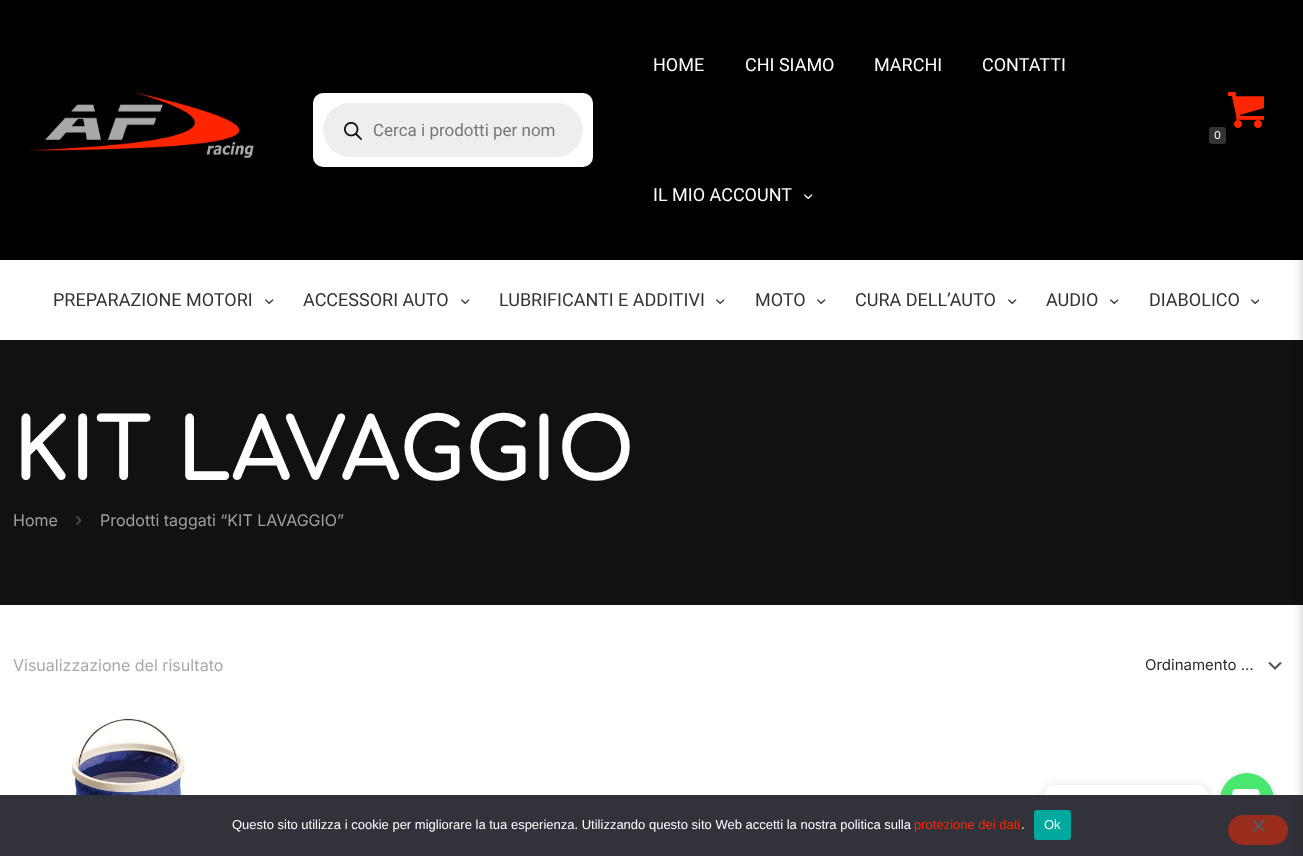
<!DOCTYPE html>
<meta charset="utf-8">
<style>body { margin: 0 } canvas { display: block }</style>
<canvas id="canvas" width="1303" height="856"></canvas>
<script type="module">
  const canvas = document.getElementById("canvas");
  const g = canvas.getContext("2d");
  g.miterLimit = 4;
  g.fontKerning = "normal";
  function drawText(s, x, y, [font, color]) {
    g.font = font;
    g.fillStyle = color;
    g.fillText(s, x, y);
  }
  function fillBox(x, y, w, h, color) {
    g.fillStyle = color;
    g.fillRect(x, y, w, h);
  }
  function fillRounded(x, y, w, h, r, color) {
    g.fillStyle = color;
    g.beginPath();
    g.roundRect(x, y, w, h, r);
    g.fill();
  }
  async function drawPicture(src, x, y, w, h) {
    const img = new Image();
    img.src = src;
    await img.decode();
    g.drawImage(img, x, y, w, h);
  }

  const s1 = ["17px Roboto", "#777777"];
  const s2 = ["18px Roboto", "#FFFFFF"];
  const s3 = ["11px Inter", "#FFFFFF"];
  const s4 = ["18px Roboto", "#333333"];
  const s5 = ["bold 85px Comfortaa", "#FFFFFF"];
  const s6 = ["16px Inter", "#A0A0A0"];
  const s7 = ["16px Inter", "#A8A8A8"];
  const s8 = ["15px Inter", "#2B2B2B"];
  const s9 = ["13px Liberation Sans", "#FFFFFF"];
  const s10 = ["13px Liberation Sans", "#FF2500"];

  fillBox(0, 0, 1303, 856, "#FFFFFF");
  fillBox(0, 340, 1303, 265, "#111111");
  fillBox(0, 0, 1303, 260, "#000000");
  await drawPicture("pic1.png", 29, 92, 225, 66);
  fillRounded(313, 93, 280, 74, 10, "#FFFFFF");
  fillRounded(323, 103, 260, 54, 27, "#EEEEEE");
  await drawPicture("pic2.png", 344, 122, 18, 18);
  drawText("Cerca i prodotti per nom", 373, 136, s1);
  drawText("HOME", 653, 71, s2);
  drawText("CHI SIAMO", 745, 71, s2);
  drawText("MARCHI", 874, 71, s2);
  drawText("CONTATTI", 982, 71, s2);
  drawText("IL MIO ACCOUNT", 653, 201, s2);
  await drawPicture("pic3.png", 804, 194, 9, 5);
  await drawPicture("pic4.png", 1228, 92, 36, 36);
  fillRounded(1209, 127, 17, 17, 3, "#333333");
  drawText("0", 1214, 139, s3);
  drawText("PREPARAZIONE MOTORI", 53, 306, s4);
  await drawPicture("pic5.png", 265, 299, 9, 5);
  drawText("ACCESSORI AUTO", 303, 306, s4);
  await drawPicture("pic5.png", 461, 299, 9, 5);
  drawText("LUBRIFICANTI E ADDITIVI", 499, 306, s4);
  await drawPicture("pic5.png", 716, 299, 9, 5);
  drawText("MOTO", 755, 306, s4);
  await drawPicture("pic5.png", 817, 299, 9, 5);
  drawText("CURA DELL’AUTO", 855, 306, s4);
  await drawPicture("pic5.png", 1008, 299, 9, 5);
  drawText("AUDIO", 1046, 306, s4);
  await drawPicture("pic5.png", 1110, 299, 9, 5);
  drawText("DIABOLICO", 1149, 306, s4);
  await drawPicture("pic5.png", 1251, 299, 9, 5);
  drawText("KIT LAVAGGIO", 13, 480, s5);
  drawText("Home", 13, 526, s6);
  await drawPicture("pic6.png", 76, 515, 6, 10);
  drawText("Prodotti taggati “KIT LAVAGGIO”", 100, 526, s6);
  drawText("Visualizzazione del risultato", 13, 671, s7);
  await drawPicture("pic7.png", 1268, 662, 14, 8);
  drawText("Ordinamento …", 1145, 670, s8);
  await drawPicture("pic8.png", 71, 716, 196, 79);
  g.fillStyle = "rgba(0, 0, 0, 0.25)";
  g.filter = "blur(3px)";
  g.beginPath();
  g.roundRect(1220, 776, 54, 54, 27);
  g.fill();
  g.filter = "none";
  await drawPicture("pic9.png", 1220, 773, 54, 22);
  g.fillStyle = "rgba(0, 0, 0, 0.15)";
  g.filter = "blur(4px)";
  g.beginPath();
  g.roundRect(1044, 786, 164, 31, 10);
  g.fill();
  g.filter = "none";
  fillRounded(1044, 785, 164, 31, 10, "#FFFFFF");
  fillBox(0, 795, 1303, 61, "#32323A");
  fillRounded(1228, 815, 60, 30, 15, "#992C1D");
  g.fillStyle = "rgba(0, 0, 0, 0.2)";
  g.filter = "blur(5px)";
  g.beginPath();
  g.rect(1302, -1, 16, 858);
  g.fill();
  g.filter = "none";
  drawText("Questo sito utilizza i cookie per migliorare la tua esperienza. Utilizzando questo sito Web accetti la nostra politica sulla", 232, 829, s9);
  drawText("protezione dei dati", 914, 829, s10);
  drawText(".", 1021, 829, s9);
  fillRounded(1034, 810, 37, 30, 3, "#00A99D");
  drawText("Ok", 1044, 829, s9);
  g.fillStyle = "#59595D";
  g.beginPath();
  g.moveTo(1263.5, 819.5);
  g.lineTo(1265, 821);
  g.lineTo(1254.5, 832);
  g.lineTo(1253, 830.5);
  g.closePath();
  g.fill();
  g.beginPath();
  g.moveTo(1253, 821);
  g.lineTo(1254.5, 819.5);
  g.lineTo(1265, 830.5);
  g.lineTo(1263.5, 832);
  g.closePath();
  g.fill();
</script>
